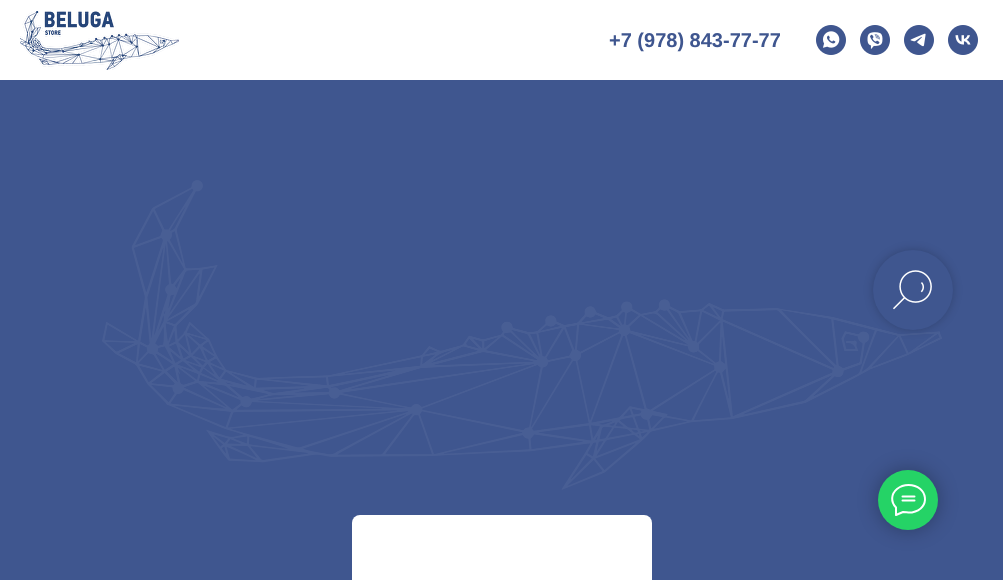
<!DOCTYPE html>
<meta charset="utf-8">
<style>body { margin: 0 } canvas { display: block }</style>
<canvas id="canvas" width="1003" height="580"></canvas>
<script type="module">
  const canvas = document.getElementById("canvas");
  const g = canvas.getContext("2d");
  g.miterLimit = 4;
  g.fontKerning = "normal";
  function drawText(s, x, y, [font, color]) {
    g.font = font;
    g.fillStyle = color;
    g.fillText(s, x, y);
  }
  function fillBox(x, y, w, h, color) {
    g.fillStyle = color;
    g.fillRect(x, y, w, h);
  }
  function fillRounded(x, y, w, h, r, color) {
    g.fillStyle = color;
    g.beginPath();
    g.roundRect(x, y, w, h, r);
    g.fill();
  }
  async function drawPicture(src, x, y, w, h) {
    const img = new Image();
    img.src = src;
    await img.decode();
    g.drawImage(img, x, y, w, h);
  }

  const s1 = ["bold 20px Liberation Sans", "#3F568F"];

  fillBox(0, 0, 1003, 580, "#FFFFFF");
  await drawPicture("pic1.png", 20, 11, 159, 59);
  drawText("+7 (978) 843-77-77", 609, 47, s1);
  await drawPicture("pic2.png", 816, 25, 30, 30);
  await drawPicture("pic3.png", 860, 25, 30, 30);
  await drawPicture("pic4.png", 904, 25, 30, 30);
  await drawPicture("pic5.png", 948, 25, 30, 30);
  fillBox(0, 80, 1003, 500, "#3F568F");
  await drawPicture("pic6.png", 102, 180, 840, 310);
  fillRounded(352, 515, 300, 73, 8, "#FFFFFF");
  g.fillStyle = "rgba(0, 0, 0, 0.2)";
  g.filter = "blur(5px)";
  g.beginPath();
  g.roundRect(873, 250, 80, 80, 40);
  g.fill();
  g.filter = "none";
  g.fillStyle = "#3F568F";
  g.beginPath();
  g.arc(913, 290, 40, 0, Math.PI * 2);
  g.fill();
  await drawPicture("pic7.png", 893, 270, 39, 40);
  g.fillStyle = "rgba(0, 0, 0, 0.3)";
  g.filter = "blur(10px)";
  g.beginPath();
  g.roundRect(878, 470, 60, 60, 30);
  g.fill();
  g.filter = "none";
  g.fillStyle = "#25D366";
  g.beginPath();
  g.arc(908, 500, 30, 0, Math.PI * 2);
  g.fill();
  g.beginPath();
  g.moveTo(902.5, 496.5);
  g.lineTo(914.5, 496.5);
  g.moveTo(902.5, 500.5);
  g.lineTo(914.5, 500.5);
  g.moveTo(896, 507.5);
  g.bezierCurveTo(890.5, 502, 891, 494, 897, 489);
  g.bezierCurveTo(900, 486.5, 904.5, 485, 908.5, 485);
  g.bezierCurveTo(928, 485, 931.5, 509, 912, 512.5);
  g.bezierCurveTo(908, 513, 906.5, 512, 903, 512);
  g.lineTo(896, 515);
  g.lineTo(896, 508);
  g.closePath();
  g.strokeStyle = "#FFFFFF";
  g.lineWidth = 2;
  g.lineCap = "round";
  g.lineJoin = "round";
  g.stroke();
</script>
